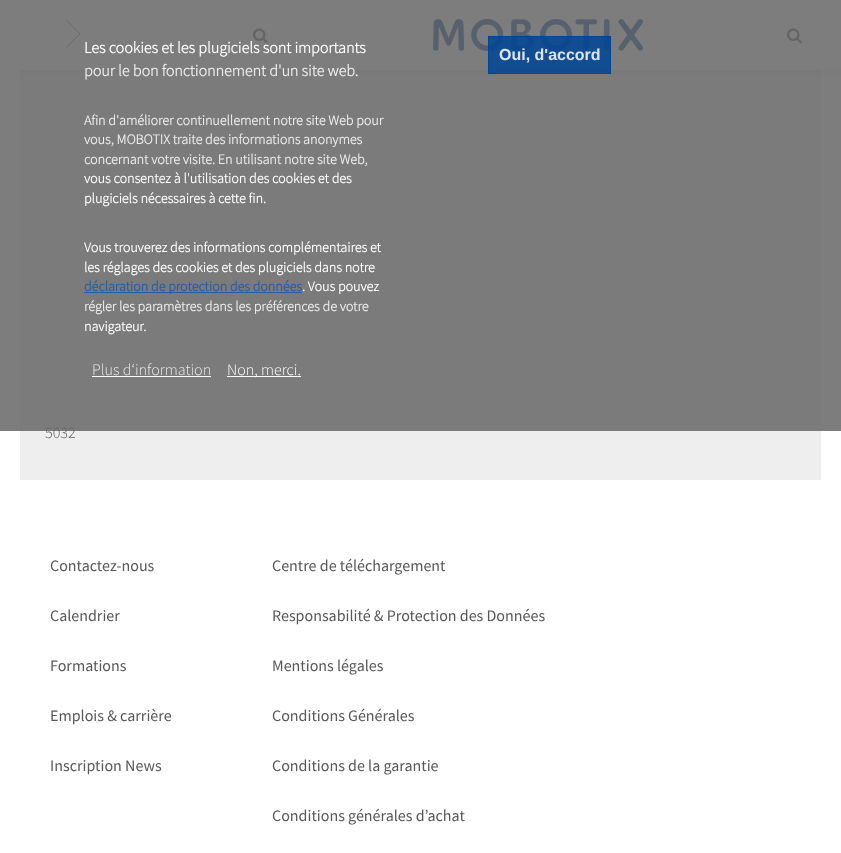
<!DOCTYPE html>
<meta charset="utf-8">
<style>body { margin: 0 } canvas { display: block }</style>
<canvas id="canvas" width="841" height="853"></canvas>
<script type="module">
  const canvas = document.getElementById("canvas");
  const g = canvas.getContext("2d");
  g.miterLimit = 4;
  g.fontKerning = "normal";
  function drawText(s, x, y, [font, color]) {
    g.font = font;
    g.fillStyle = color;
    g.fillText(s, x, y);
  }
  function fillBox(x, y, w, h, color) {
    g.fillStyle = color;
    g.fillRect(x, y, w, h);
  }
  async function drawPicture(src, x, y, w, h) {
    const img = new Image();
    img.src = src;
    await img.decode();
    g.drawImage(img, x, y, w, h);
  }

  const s1 = ["300 16px Source Sans Pro", "#58585A"];
  const s2 = ["bold 16px Source Sans Pro", "#FFFFFF"];
  const s3 = ["bold 16px Source Sans Pro", "#EBEBEB"];
  const s4 = ["bold 14px Source Sans Pro", "#EBEBEB"];
  const s5 = ["bold 14px Source Sans Pro", "#FFFFFF"];
  const s6 = ["bold 14px Source Sans Pro", "#245EA2"];
  const s7 = ["300 16px Source Sans Pro", "#EBEBEB"];
  const s8 = ["300 16px Source Sans Pro", "#FFFFFF"];
  const s9 = ["bold 16px Liberation Sans", "#DCE4EE"];
  const s10 = ["16px Source Sans Pro", "#58585A"];

  fillBox(0, 0, 841, 853, "#FFFFFF");
  fillBox(20, 70, 801, 410, "#EEEEEE");
  g.save();
  g.beginPath();
  g.rect(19, 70, 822, 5);
  g.clip();
  g.fillStyle = "rgba(0, 0, 0, 0.07)";
  g.filter = "blur(4px)";
  g.beginPath();
  g.rect(20, 3, 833, 70);
  g.fill();
  g.filter = "none";
  g.restore();
  fillBox(16, 0, 4, 70, "#FFFFFF");
  await drawPicture("pic1.png", 66, 19, 15, 29);
  await drawPicture("pic2.png", 253, 28, 15, 16);
  await drawPicture("pic3.png", 433, 19, 210, 32);
  await drawPicture("pic2.png", 787, 28, 15, 16);
  drawText("5032", 45, 438, s1);
  fillBox(0, 0, 841, 431, "rgba(102, 102, 102, 0.85)");
  drawText("Les cookies et les plugiciels sont importants", 84, 53, s2);
  drawText("pour le bon fonctionnement d'un site web.", 84, 76, s3);
  drawText("Afin d'améliorer continuellement notre site Web pour", 84, 125, s4);
  drawText("vous, MOBOTIX traite des informations anonymes", 84, 144, s4);
  drawText("concernant votre visite. En utilisant notre site Web,", 84, 164, s4);
  drawText("vous consentez à l'utilisation des cookies et des", 84, 183, s5);
  drawText("plugiciels nécessaires à cette fin.", 84, 203, s5);
  drawText("Vous trouverez des informations complémentaires et", 84, 252, s5);
  drawText("les réglages des cookies et des plugiciels dans notre", 84, 272, s5);
  fillBox(84, 292, 218, 1, "#245EA2");
  drawText("déclaration de protection des données", 84, 291, s6);
  drawText(". Vous pouvez", 302, 291, s5);
  drawText("régler les paramètres dans les préférences de votre", 84, 311, s4);
  drawText("navigateur.", 84, 331, s5);
  drawText("Plus d‘information", 92, 375, s7);
  fillBox(92, 376, 119, 1, "#FCFCFC");
  fillBox(227, 376, 74, 1, "#FCFCFC");
  drawText("Non, merci.", 227, 375, s8);
  fillBox(488, 36, 123, 38, "rgba(0, 68, 148, 0.85)");
  g.strokeStyle = "rgba(0, 68, 148, 0.85)";
  g.strokeRect(488.5, 36.5, 122, 37);
  drawText("Oui, d'accord", 499, 60, s9);
  drawText("Contactez-nous", 50, 571, s10);
  drawText("Calendrier", 50, 621, s10);
  drawText("Formations", 50, 671, s10);
  drawText("Emplois & carrière", 50, 721, s10);
  drawText("Inscription News", 50, 771, s10);
  drawText("Centre de téléchargement", 272, 571, s10);
  drawText("Responsabilité & Protection des Données", 272, 621, s10);
  drawText("Mentions légales", 272, 671, s10);
  drawText("Conditions Générales", 272, 721, s10);
  drawText("Conditions de la garantie", 272, 771, s10);
  drawText("Conditions générales d’achat", 272, 821, s10);
</script>
